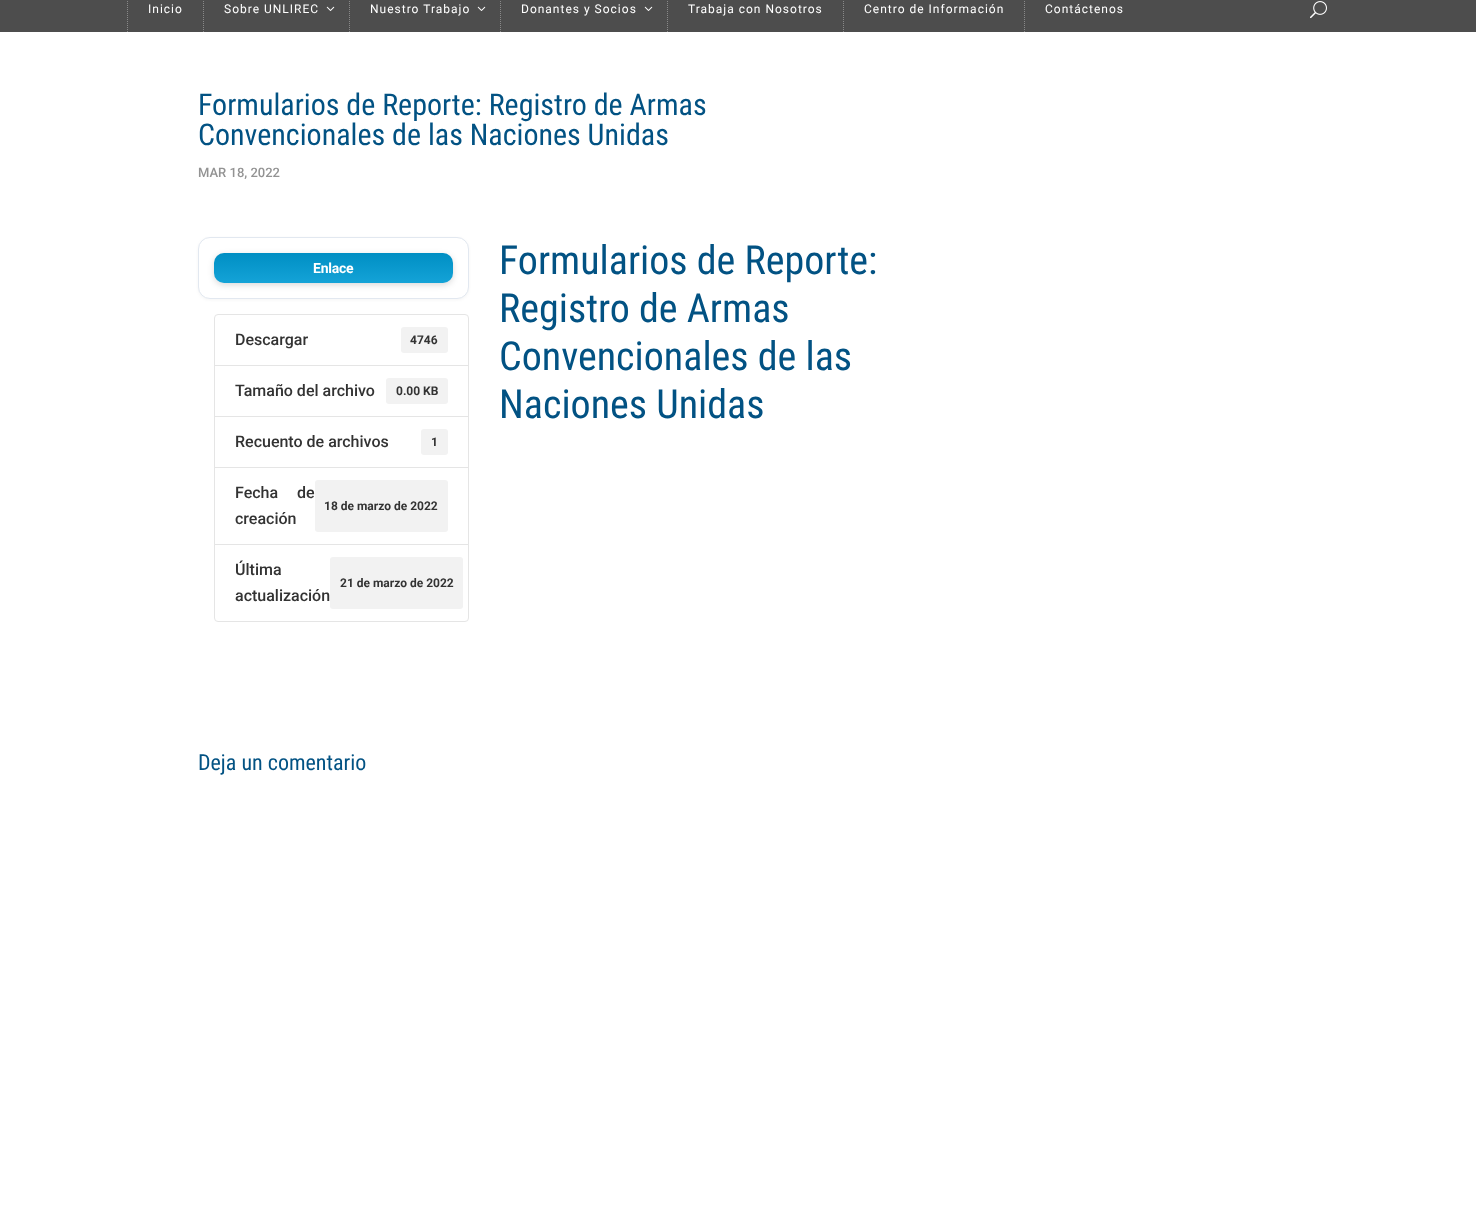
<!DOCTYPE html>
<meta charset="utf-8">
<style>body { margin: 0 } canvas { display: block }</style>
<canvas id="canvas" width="1476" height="1222"></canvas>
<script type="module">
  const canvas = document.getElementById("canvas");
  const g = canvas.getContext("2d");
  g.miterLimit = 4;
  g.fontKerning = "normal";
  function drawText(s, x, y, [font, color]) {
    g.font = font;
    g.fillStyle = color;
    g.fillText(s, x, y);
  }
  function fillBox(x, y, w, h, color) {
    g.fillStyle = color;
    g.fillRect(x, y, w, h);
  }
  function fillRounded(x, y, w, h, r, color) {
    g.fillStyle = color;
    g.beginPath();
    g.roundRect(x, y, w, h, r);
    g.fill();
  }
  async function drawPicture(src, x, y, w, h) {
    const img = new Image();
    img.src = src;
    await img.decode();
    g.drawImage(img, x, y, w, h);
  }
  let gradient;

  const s1 = ["12px Roboto", "#FFFFFF"];
  const s2 = ["30px Roboto Condensed", "#025283"];
  const s3 = ["500 13px Roboto", "#939393"];
  const s4 = ["bold 14px Roboto", "#FFFFFF"];
  const s5 = ["500 16px Roboto", "#333333"];
  const s6 = ["bold 12px Roboto", "#333333"];
  const s7 = ["40px Roboto Condensed", "#025283"];
  const s8 = ["22px Roboto Condensed", "#025283"];

  fillBox(0, 0, 1476, 1222, "#FFFFFF");
  fillBox(0, 0, 1476, 32, "#4D4D4D");
  g.beginPath();
  g.moveTo(127.5, -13);
  g.lineTo(127.5, 32);
  g.strokeStyle = "#898989";
  g.setLineDash([1, 1]);
  g.stroke();
  g.letterSpacing = "1px";
  drawText("Inicio", 148, 13, s1);
  g.beginPath();
  g.moveTo(203.5, -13);
  g.lineTo(203.5, 32);
  g.stroke();
  drawText("Sobre UNLIREC", 224, 13, s1);
  await drawPicture("pic1.png", 326, 6, 9, 5);
  g.beginPath();
  g.moveTo(349.5, -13);
  g.lineTo(349.5, 32);
  g.stroke();
  drawText("Nuestro Trabajo", 370, 13, s1);
  await drawPicture("pic1.png", 477, 6, 9, 5);
  g.beginPath();
  g.moveTo(500.5, -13);
  g.lineTo(500.5, 32);
  g.stroke();
  drawText("Donantes y Socios", 521, 13, s1);
  await drawPicture("pic1.png", 644, 6, 9, 5);
  g.beginPath();
  g.moveTo(667.5, -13);
  g.lineTo(667.5, 32);
  g.stroke();
  drawText("Trabaja con Nosotros", 688, 13, s1);
  g.beginPath();
  g.moveTo(843.5, -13);
  g.lineTo(843.5, 32);
  g.stroke();
  drawText("Centro de Información", 864, 13, s1);
  g.beginPath();
  g.moveTo(1024.5, -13);
  g.lineTo(1024.5, 32);
  g.stroke();
  drawText("Contáctenos", 1045, 13, s1);
  await drawPicture("pic2.png", 1310, 1, 17, 18);
  g.letterSpacing = "0px";
  drawText("Formularios de Reporte: Registro de Armas", 198, 115, s2);
  drawText("Convencionales de las Naciones Unidas", 198, 145, s2);
  drawText("MAR 18, 2022", 198, 177, s3);
  g.fillStyle = "rgba(0, 0, 0, 0.04)";
  g.filter = "blur(1.5px)";
  g.beginPath();
  g.roundRect(198, 238, 271, 62, 12);
  g.fill();
  g.filter = "none";
  g.fillStyle = "#FFFFFF";
  g.beginPath();
  g.roundRect(198.5, 237.5, 270, 61, 11.5);
  g.fill();
  g.strokeStyle = "#E2E8F0";
  g.setLineDash([]);
  g.stroke();
  g.fillStyle = "rgba(0, 0, 0, 0.15)";
  g.filter = "blur(3px)";
  g.beginPath();
  g.roundRect(214, 255, 239, 30, 10);
  g.fill();
  g.filter = "none";
  fillRounded(214, 253, 239, 30, 10, "#009BD4");
  gradient = g.createLinearGradient(334, 253, 334, 283);
  gradient.addColorStop(0, "rgba(0, 0, 0, 0.08)");
  gradient.addColorStop(1, "rgba(255, 255, 255, 0.08)");
  g.fillStyle = gradient;
  g.beginPath();
  g.roundRect(214, 253, 239, 30, 10);
  g.fill();
  g.letterSpacing = "-0.25px";
  drawText("Enlace", 313, 273, s4);
  g.beginPath();
  g.roundRect(214.5, 314.5, 254, 51, [3.5, 3.5, 0, 0]);
  g.strokeStyle = "#E5E5E5";
  g.stroke();
  g.letterSpacing = "0px";
  drawText("Descargar", 235, 345, s5);
  fillRounded(401, 327, 47, 26, 3, "#F2F2F2");
  drawText("4746", 410, 344, s6);
  g.strokeRect(214.5, 365.5, 254, 51);
  drawText("Tamaño del archivo", 235, 396, s5);
  fillRounded(386, 378, 62, 26, 3, "#F2F2F2");
  drawText("0.00 KB", 396, 395, s6);
  g.strokeRect(214.5, 416.5, 254, 51);
  drawText("Recuento de archivos", 235, 447, s5);
  fillRounded(421, 429, 27, 26, 3, "#F2F2F2");
  drawText("1", 431, 446, s6);
  g.strokeRect(214.5, 467.5, 254, 77);
  g.wordSpacing = "15px";
  drawText("Fecha de", 235, 498, s5);
  fillRounded(315, 480, 133, 52, 3, "#F2F2F2");
  g.wordSpacing = "0px";
  drawText("18 de marzo de 2022", 324, 510, s6);
  drawText("creación", 235, 524, s5);
  g.fillStyle = "#FFFFFF";
  g.beginPath();
  g.roundRect(214.5, 544.5, 254, 77, [0, 0, 3.5, 3.5]);
  g.fill();
  g.stroke();
  drawText("Última", 235, 575, s5);
  fillRounded(330, 557, 133, 52, 3, "#F2F2F2");
  drawText("21 de marzo de 2022", 340, 587, s6);
  drawText("actualización", 235, 601, s5);
  drawText("Formularios de Reporte:", 499, 274, s7);
  drawText("Registro de Armas", 499, 322, s7);
  drawText("Convencionales de las", 499, 370, s7);
  drawText("Naciones Unidas", 499, 418, s7);
  drawText("Deja un comentario", 198, 770, s8);
</script>
